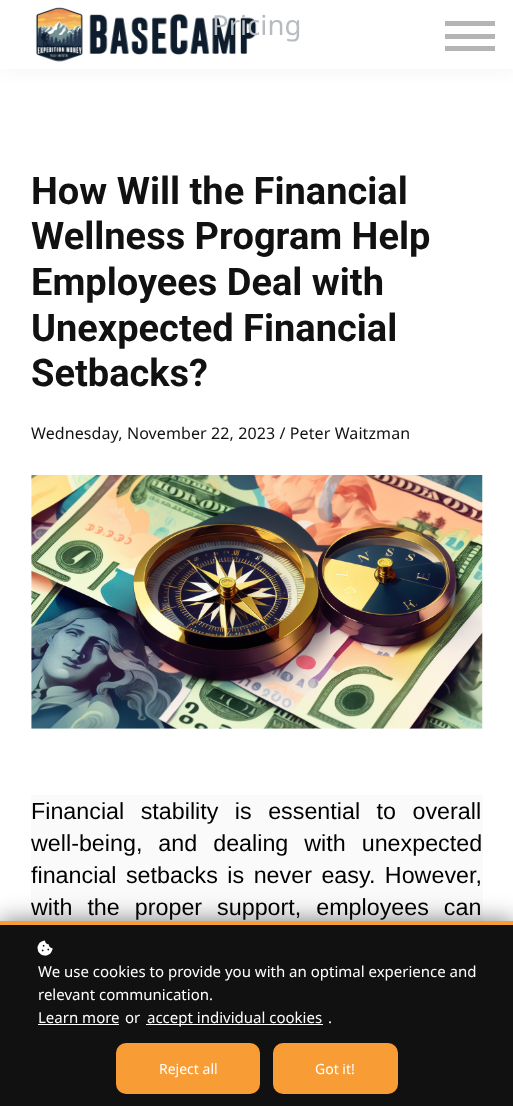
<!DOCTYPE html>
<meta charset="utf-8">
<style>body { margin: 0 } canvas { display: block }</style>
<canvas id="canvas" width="513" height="1106"></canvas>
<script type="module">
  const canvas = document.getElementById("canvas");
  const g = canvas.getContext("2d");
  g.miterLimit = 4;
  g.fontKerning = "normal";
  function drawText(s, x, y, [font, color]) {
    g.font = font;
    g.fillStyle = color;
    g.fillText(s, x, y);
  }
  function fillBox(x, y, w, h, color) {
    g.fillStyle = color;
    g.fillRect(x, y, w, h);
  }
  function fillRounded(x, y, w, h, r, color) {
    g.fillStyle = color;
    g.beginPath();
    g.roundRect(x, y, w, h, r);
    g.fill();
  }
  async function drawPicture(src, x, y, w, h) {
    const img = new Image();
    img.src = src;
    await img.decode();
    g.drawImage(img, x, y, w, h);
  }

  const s1 = ["27.5px Noto Sans", "#B8BCC1"];
  const s2 = ["bold 38px Roboto", "#111111"];
  const s3 = ["16px Noto Sans", "#111111"];
  const s4 = ["23.3px Liberation Sans", "#000000"];
  const s5 = ["15px Noto Sans", "#FFFFFF"];
  const s6 = ["14px Noto Sans", "#FFFFFF"];

  fillBox(0, 0, 513, 1106, "#FFFFFF");
  g.fillStyle = "rgba(0, 0, 0, 0.05)";
  g.filter = "blur(9.5px)";
  g.beginPath();
  g.rect(0, 0, 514, 69);
  g.fill();
  g.filter = "none";
  fillBox(0, 0, 513, 69, "#FFFFFF");
  await drawPicture("pic1.png", 35, 7, 222, 55);
  drawText("Pricing", 212, 35, s1);
  fillBox(445, 46, 50, 5, "#B4B4B4");
  fillBox(445, 21, 50, 5, "#B4B4B4");
  fillBox(445, 34, 50, 5, "#B4B4B4");
  drawText("How Will the Financial", 31, 204, s2);
  drawText("Wellness Program Help", 31, 249, s2);
  drawText("Employees Deal with", 31, 295, s2);
  drawText("Unexpected Financial", 31, 341, s2);
  drawText("Setbacks?", 31, 386, s2);
  g.letterSpacing = "0.1px";
  drawText("Wednesday, November 22, 2023 / Peter Waitzman", 31, 439, s3);
  await drawPicture("pic2.png", 31, 475, 452, 254);
  fillBox(31, 795, 452, 126, "#FAFAFA");
  g.letterSpacing = "0px";
  g.wordSpacing = "10px";
  drawText("Financial stability is essential to overall", 31, 819, s4);
  g.wordSpacing = "9.5px";
  drawText("well-being, and dealing with unexpected", 31, 851, s4);
  g.wordSpacing = "3px";
  drawText("financial setbacks is never easy. However,", 31, 883, s4);
  g.wordSpacing = "8.5px";
  drawText("with the proper support, employees can", 31, 915, s4);
  g.fillStyle = "rgba(0, 0, 0, 0.5)";
  g.filter = "blur(12.5px)";
  g.beginPath();
  g.rect(0, 921, 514, 185);
  g.fill();
  g.filter = "none";
  fillBox(0, 925, 513, 181, "#111111");
  fillBox(0, 921, 513, 4, "#F89D35");
  await drawPicture("pic3.png", 37, 940, 16, 16);
  g.wordSpacing = "0px";
  drawText("We use cookies to provide you with an optimal experience and", 38, 977, s5);
  drawText("relevant communication.", 38, 1000, s5);
  drawText("Learn more", 38, 1023, s5);
  fillBox(38, 1024, 81, 1, "#FFFFFF");
  drawText("or", 125, 1023, s5);
  fillBox(146, 1024, 177, 1, "#FFFFFF");
  drawText("accept individual cookies", 147, 1023, s5);
  drawText(".", 328, 1023, s5);
  fillRounded(116, 1043, 144, 51, 10, "#F89D35");
  drawText("Reject all", 159, 1074, s6);
  fillRounded(273, 1043, 125, 51, 10, "#F89D35");
  drawText("Got it!", 315, 1074, s6);
</script>
